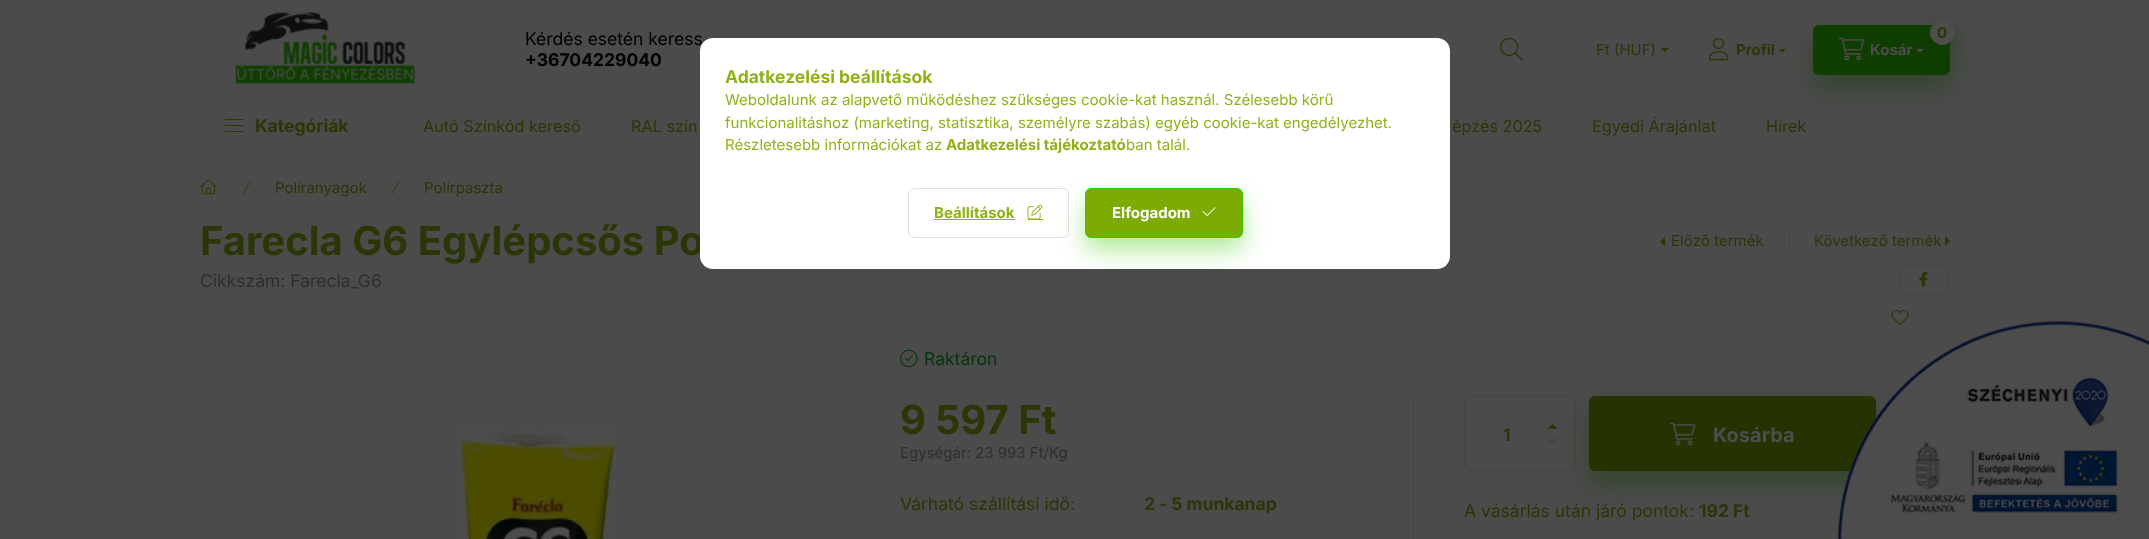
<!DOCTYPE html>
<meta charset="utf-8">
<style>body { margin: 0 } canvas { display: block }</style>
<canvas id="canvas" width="2149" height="539"></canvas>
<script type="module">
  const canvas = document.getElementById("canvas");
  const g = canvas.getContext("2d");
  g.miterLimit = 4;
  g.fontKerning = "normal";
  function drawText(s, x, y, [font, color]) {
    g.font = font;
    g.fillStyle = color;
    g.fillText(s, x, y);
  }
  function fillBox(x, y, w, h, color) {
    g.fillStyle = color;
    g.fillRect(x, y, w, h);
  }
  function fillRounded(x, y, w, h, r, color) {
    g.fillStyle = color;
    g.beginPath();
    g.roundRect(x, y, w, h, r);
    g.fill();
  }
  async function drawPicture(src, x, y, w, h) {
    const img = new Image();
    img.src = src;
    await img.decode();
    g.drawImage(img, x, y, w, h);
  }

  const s1 = ["17.5px Inter", "#000000"];
  const s2 = ["bold 17.5px Inter", "#000000"];
  const s3 = ["15px Inter", "#2B3607"];
  const s4 = ["bold 15px Inter", "#2B3607"];
  const s5 = ["bold 15px Inter", "#4D4D4D"];
  const s6 = ["bold 17.5px Inter", "#2B3607"];
  const s7 = ["16.25px Inter", "#2B3607"];
  const s8 = ["bold 40px Inter", "#2B3607"];
  const s9 = ["17.5px Inter", "#2E2E2E"];
  const s10 = ["17.5px Inter", "#05340A"];
  const s11 = ["15px Inter", "#2E2E2E"];
  const s12 = ["17.5px Inter", "#2B3607"];
  const s13 = ["bold 20px Inter", "#4D4D4D"];
  const s14 = ["bold 17.5px Inter", "#8FB317"];
  const s15 = ["15px Inter", "#8FB317"];
  const s16 = ["bold 15px Inter", "#8FB317"];
  const s17 = ["bold 15px Inter", "#FFFFFF"];

  fillBox(0, 0, 2149, 539, "#4B4B4B");
  await drawPicture("pic1.png", 235, 12, 181, 72);
  drawText("Kérdés esetén keress", 525, 45, s1);
  drawText("+36704229040", 525, 66, s2);
  await drawPicture("pic2.png", 1500, 37, 23, 24);
  drawText("Ft (HUF)", 1596, 55, s3);
  g.beginPath();
  g.moveTo(1661, 48);
  g.lineTo(1669, 48);
  g.lineTo(1665, 52);
  g.closePath();
  g.fill();
  await drawPicture("pic3.png", 1708, 37, 21, 24);
  drawText("Profil", 1736, 55, s4);
  g.fillStyle = "rgba(16, 61, 0, 0.4)";
  g.filter = "blur(12.5px)";
  g.beginPath();
  g.roundRect(1813, 38, 137, 50, 6);
  g.fill();
  g.filter = "none";
  g.fillStyle = "#2B3607";
  g.beginPath();
  g.moveTo(1779, 49);
  g.lineTo(1786, 49);
  g.lineTo(1782.5, 52.5);
  g.closePath();
  g.fill();
  fillRounded(1813, 25, 137, 50, 6, "#103D00");
  g.fillStyle = "rgba(16, 61, 0, 0.4)";
  g.filter = "blur(6px)";
  g.beginPath();
  g.roundRect(1930, 26, 25, 25, 12.5);
  g.fill();
  g.filter = "none";
  g.fillStyle = "#4D4D4D";
  g.beginPath();
  g.arc(1942.5, 32.5, 12.5, 0, Math.PI * 2);
  g.fill();
  drawText("0", 1937, 38, s4);
  await drawPicture("pic4.png", 1838, 37, 26, 24);
  drawText("Kosár", 1870, 55, s5);
  g.beginPath();
  g.moveTo(1916, 49);
  g.lineTo(1924, 49);
  g.lineTo(1920, 52.5);
  g.closePath();
  g.fill();
  fillBox(225, 119, 18, 1, "#2B3607");
  fillBox(225, 125, 18, 1, "#2B3607");
  fillBox(225, 131, 18, 1, "#2B3607");
  drawText("Kategóriák", 255, 132, s6);
  drawText("Autó Színkód kereső", 423, 132, s7);
  drawText("RAL szín", 631, 132, s7);
  drawText("épzés 2025", 1452, 132, s7);
  drawText("Egyedi Árajánlat", 1592, 132, s7);
  drawText("Hírek", 1766, 132, s7);
  await drawPicture("pic5.png", 200, 179, 17, 16);
  await drawPicture("pic6.png", 242, 181, 9, 13);
  drawText("Políranyagok", 275, 193, s3);
  await drawPicture("pic7.png", 391, 181, 8, 13);
  drawText("Polírpaszta", 424, 193, s3);
  drawText("Farecla G6 Egylépcsős Po", 200, 255, s8);
  g.beginPath();
  g.moveTo(1665, 246.5);
  g.lineTo(1665, 236.5);
  g.lineTo(1660, 241.5);
  g.closePath();
  g.fill();
  drawText("Előző termék", 1671, 246, s3);
  fillBox(1789, 230, 1, 23, "#444444");
  drawText("Következő termék", 1814, 246, s3);
  g.beginPath();
  g.moveTo(1945, 246);
  g.lineTo(1945, 236);
  g.lineTo(1950, 241);
  g.closePath();
  g.fill();
  drawText("Cikkszám: Farecla_G6", 200, 287, s9);
  g.beginPath();
  g.roundRect(1899.5, 265.5, 49, 29, 5.5);
  g.strokeStyle = "#444444";
  g.stroke();
  await drawPicture("pic8.png", 1919, 271, 9, 16);
  await drawPicture("pic9.png", 1891, 309, 18, 16);
  await drawPicture("pic10.png", 455, 430, 162, 109);
  await drawPicture("pic11.png", 900, 349, 18, 19);
  drawText("Raktáron", 924, 365, s10);
  drawText("9 597 Ft", 900, 434, s8);
  drawText("Egységár: 23 993 Ft/Kg", 900, 458, s11);
  drawText("Várható szállítási idő:", 900, 510, s12);
  drawText("2 - 5 munkanap", 1144, 510, s6);
  fillBox(1413, 396, 1, 143, "#444444");
  g.beginPath();
  g.roundRect(1464.5, 396.5, 111, 74, 5.5);
  g.stroke();
  drawText("1", 1503, 441, s6);
  g.beginPath();
  g.moveTo(1557.5, 429);
  g.lineTo(1547.5, 429);
  g.lineTo(1552.5, 424);
  g.closePath();
  g.fill();
  g.fillStyle = "#424242";
  g.beginPath();
  g.moveTo(1547.5, 439);
  g.lineTo(1557.5, 439);
  g.lineTo(1552.5, 444);
  g.closePath();
  g.fill();
  g.fillStyle = "rgba(16, 61, 0, 0.4)";
  g.filter = "blur(12.5px)";
  g.beginPath();
  g.roundRect(1589, 409, 287, 75, 6);
  g.fill();
  g.filter = "none";
  fillRounded(1589, 396, 287, 75, 6, "#253301");
  await drawPicture("pic12.png", 1670, 422, 26, 24);
  drawText("Kosárba", 1713, 442, s13);
  drawText("A vásárlás után járó pontok:", 1464, 517, s12);
  drawText("192 Ft", 1699, 517, s6);
  fillRounded(700, 38, 750, 231, 13, "#FFFFFF");
  drawText("Adatkezelési beállítások", 725, 83, s14);
  drawText("Weboldalunk az alapvető működéshez szükséges cookie-kat használ. Szélesebb körű", 725, 105, s15);
  drawText("funkcionalitáshoz (marketing, statisztika, személyre szabás) egyéb cookie-kat engedélyezhet.", 725, 128, s15);
  drawText("Részletesebb információkat az", 725, 150, s15);
  drawText("Adatkezelési tájékoztató", 946, 150, s16);
  drawText("ban talál.", 1126, 150, s15);
  g.beginPath();
  g.roundRect(908.5, 188.5, 160, 49, 5.5);
  g.strokeStyle = "#E1E1E1";
  g.stroke();
  drawText("Beállítások", 934, 218, s16);
  fillBox(934, 219, 81, 1, "#8FB317");
  await drawPicture("pic13.png", 1027, 204, 16, 15);
  fillBox(1028, 219, 15, 1, "#8FB317");
  g.save();
  g.beginPath();
  g.roundRect(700, 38, 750, 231, 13);
  g.clip();
  g.fillStyle = "rgba(54, 204, 0, 0.4)";
  g.filter = "blur(12.5px)";
  g.beginPath();
  g.roundRect(1085, 200, 158, 50, 6);
  g.fill();
  g.filter = "none";
  g.restore();
  g.fillStyle = "#7CAB04";
  g.beginPath();
  g.roundRect(1085.5, 188.5, 157, 49, 5.5);
  g.fill();
  g.strokeStyle = "#36CC00";
  g.stroke();
  drawText("Elfogadom", 1112, 218, s17);
  await drawPicture("pic14.png", 1202, 207, 14, 9);
  await drawPicture("pic15.png", 1837, 321, 312, 218);
</script>
